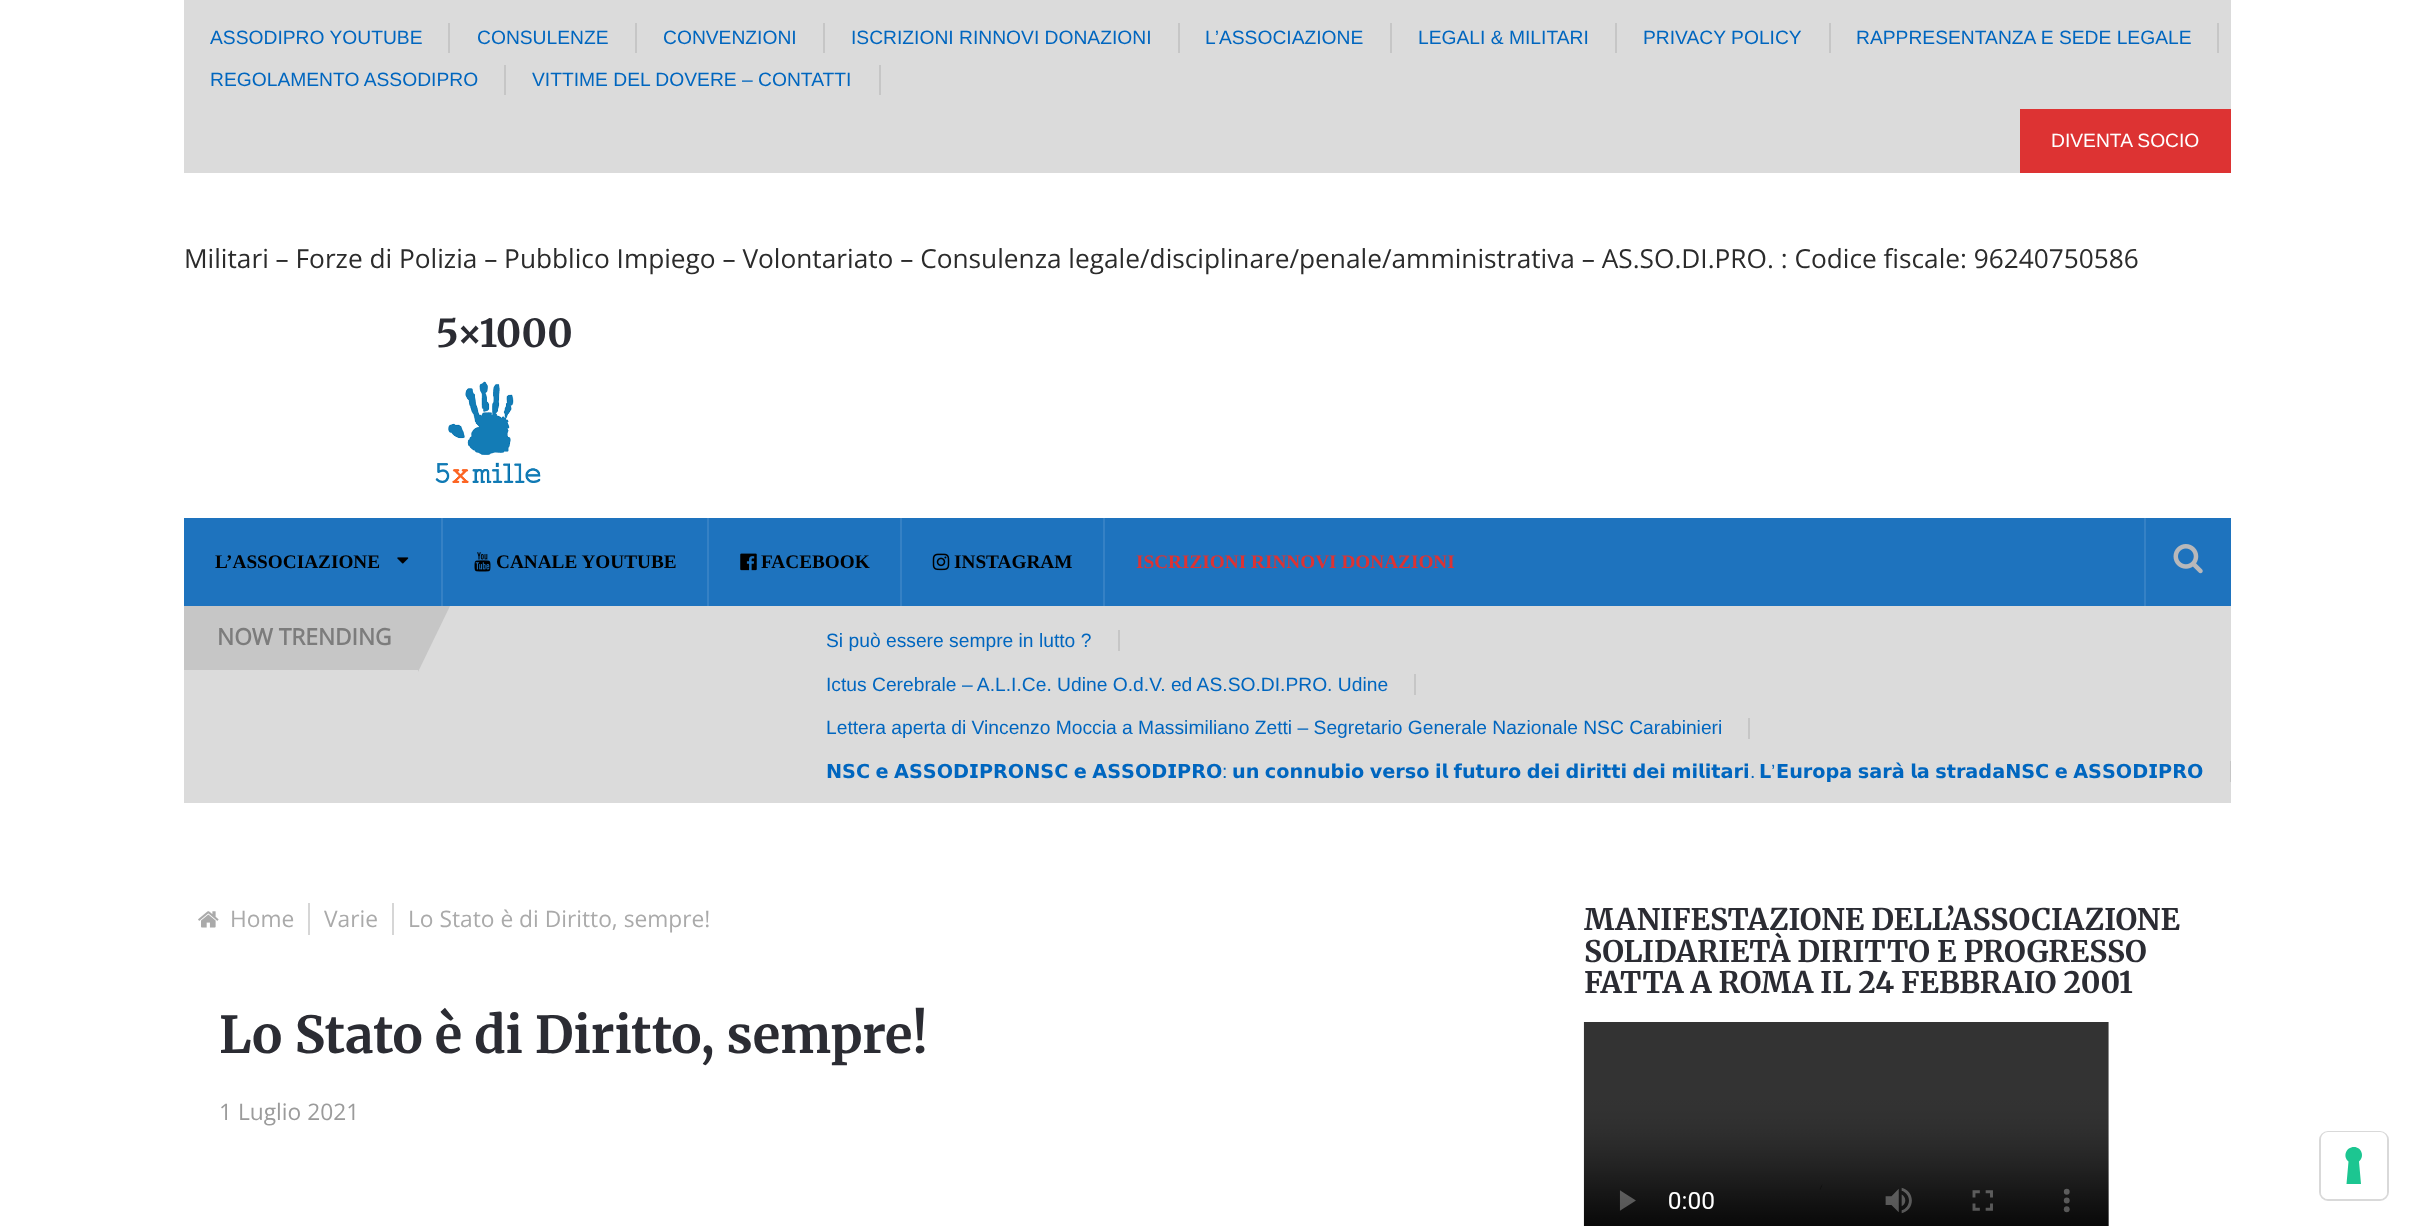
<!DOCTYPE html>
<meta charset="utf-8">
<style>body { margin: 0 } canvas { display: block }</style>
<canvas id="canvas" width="2414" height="1226"></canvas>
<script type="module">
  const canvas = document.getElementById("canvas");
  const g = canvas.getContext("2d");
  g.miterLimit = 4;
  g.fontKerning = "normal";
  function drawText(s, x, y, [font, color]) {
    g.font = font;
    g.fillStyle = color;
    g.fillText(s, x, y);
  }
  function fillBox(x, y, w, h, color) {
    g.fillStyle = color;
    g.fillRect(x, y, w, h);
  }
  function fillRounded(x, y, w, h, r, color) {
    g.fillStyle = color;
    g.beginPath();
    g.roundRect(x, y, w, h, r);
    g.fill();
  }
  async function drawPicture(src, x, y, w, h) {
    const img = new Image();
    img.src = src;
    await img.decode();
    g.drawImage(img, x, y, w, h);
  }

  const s1 = ["19.25px Liberation Sans", "#0066BF"];
  const s2 = ["19.25px Liberation Sans", "#FFFFFF"];
  const s3 = ["26.25px Open Sans", "#2B2B2B"];
  const s4 = ["300 38.5px Merriweather", "#2B2C33"];
  const s5 = ["bold 19.25px Liberation Serif", "#000000"];
  const s6 = ["bold 19.25px Liberation Serif", "#DD3333"];
  const s7 = ["bold 22.75px Open Sans", "#7C7C7C"];
  const s8 = ["bold 19.25px DejaVu Sans", "#0066BF"];
  const s9 = ["22.75px Open Sans", "#AAAAAA"];
  const s10 = ["300 50.75px Merriweather", "#2B2C33"];
  const s11 = ["22.75px Open Sans", "#9B9B9B"];
  const s12 = ["300 29.75px Merriweather", "#2B2C33"];

  fillBox(0, 0, 2414, 1226, "#FFFFFF");
  fillBox(184, 0, 2047, 173, "#DBDBDB");
  fillBox(448, 23, 2, 30, "#C6C6C6");
  drawText("ASSODIPRO YOUTUBE", 210, 44, s1);
  fillBox(635, 23, 2, 30, "#C6C6C6");
  drawText("CONSULENZE", 477, 44, s1);
  fillBox(823, 23, 2, 30, "#C6C6C6");
  drawText("CONVENZIONI", 663, 44, s1);
  fillBox(1178, 23, 2, 30, "#C6C6C6");
  drawText("ISCRIZIONI RINNOVI DONAZIONI", 851, 44, s1);
  fillBox(1390, 23, 2, 30, "#C6C6C6");
  drawText("L’ASSOCIAZIONE", 1205, 44, s1);
  fillBox(1615, 23, 2, 30, "#C6C6C6");
  drawText("LEGALI & MILITARI", 1418, 44, s1);
  fillBox(1829, 23, 2, 30, "#C6C6C6");
  drawText("PRIVACY POLICY", 1643, 44, s1);
  fillBox(2217, 23, 2, 30, "#C6C6C6");
  drawText("RAPPRESENTANZA E SEDE LEGALE", 1856, 44, s1);
  fillBox(504, 65, 2, 30, "#C6C6C6");
  drawText("REGOLAMENTO ASSODIPRO", 210, 86, s1);
  fillBox(879, 65, 2, 30, "#C6C6C6");
  drawText("VITTIME DEL DOVERE – CONTATTI", 532, 86, s1);
  fillBox(2020, 109, 211, 64, "#DD3333");
  drawText("DIVENTA SOCIO", 2051, 147, s2);
  drawText("Militari – Forze di Polizia – Pubblico Impiego – Volontariato – Consulenza legale/disciplinare/penale/amministrativa – AS.SO.DI.PRO. : Codice fiscale: 96240750586", 184, 268, s3);
  drawText("5×1000", 436, 347, s4);
  await drawPicture("pic1.png", 435, 381, 106, 102);
  fillBox(184, 518, 2047, 88, "#1E73BE");
  fillBox(441, 518, 2, 88, "#3581C5");
  drawText("L’ASSOCIAZIONE", 215, 568, s5);
  await drawPicture("pic2.png", 397, 557, 12, 7);
  fillBox(707, 518, 2, 88, "#3581C5");
  await drawPicture("pic3.png", 474, 552, 17, 20);
  drawText("CANALE YOUTUBE", 496, 568, s5);
  fillBox(900, 518, 2, 88, "#3581C5");
  await drawPicture("pic4.png", 740, 553, 17, 18);
  drawText("FACEBOOK", 761, 568, s5);
  fillBox(1103, 518, 2, 88, "#3581C5");
  await drawPicture("pic5.png", 932, 553, 18, 18);
  drawText("INSTAGRAM", 954, 568, s5);
  drawText("ISCRIZIONI RINNOVI DONAZIONI", 1136, 568, s6);
  fillBox(2144, 518, 2, 88, "#3581C5");
  await drawPicture("pic6.png", 2173, 544, 30, 30);
  fillBox(184, 606, 2047, 197, "#DBDBDB");
  fillBox(184, 606, 234, 64, "#C6C6C6");
  drawText("NOW TRENDING", 217, 645, s7);
  g.fillStyle = "#C6C6C6";
  g.beginPath();
  g.moveTo(418, 606);
  g.lineTo(450, 606);
  g.lineTo(418, 672);
  g.closePath();
  g.fill();
  drawText("Si può essere sempre in lutto ?", 826, 647, s1);
  fillBox(1118, 630, 2, 21, "#C6C6C6");
  drawText("Ictus Cerebrale – A.L.I.Ce. Udine O.d.V. ed AS.SO.DI.PRO. Udine", 826, 691, s1);
  fillBox(1414, 674, 2, 21, "#C6C6C6");
  drawText("Lettera aperta di Vincenzo Moccia a Massimiliano Zetti – Segretario Generale Nazionale NSC Carabinieri", 826, 734, s1);
  fillBox(1748, 718, 2, 21, "#C6C6C6");
  g.wordSpacing = "-1.25px";
  drawText("𝗡𝗦𝗖 𝗲 𝗔𝗦𝗦𝗢𝗗𝗜𝗣𝗥𝗢𝗡𝗦𝗖 𝗲 𝗔𝗦𝗦𝗢𝗗𝗜𝗣𝗥𝗢", 826, 778, s8);
  g.wordSpacing = "0px";
  drawText(":", 1222, 778, s1);
  g.wordSpacing = "-1.25px";
  drawText("𝘂𝗻 𝗰𝗼𝗻𝗻𝘂𝗯𝗶𝗼 𝘃𝗲𝗿𝘀𝗼 𝗶𝗹 𝗳𝘂𝘁𝘂𝗿𝗼 𝗱𝗲𝗶 𝗱𝗶𝗿𝗶𝘁𝘁𝗶 𝗱𝗲𝗶 𝗺𝗶𝗹𝗶𝘁𝗮𝗿𝗶", 1232, 778, s8);
  g.wordSpacing = "0px";
  drawText(".", 1750, 778, s1);
  drawText("𝗟", 1759, 778, s8);
  drawText("’", 1771, 778, s1);
  g.wordSpacing = "-1.25px";
  drawText("𝗘𝘂𝗿𝗼𝗽𝗮 𝘀𝗮𝗿𝗮̀ 𝗹𝗮 𝘀𝘁𝗿𝗮𝗱𝗮𝗡𝗦𝗖 𝗲 𝗔𝗦𝗦𝗢𝗗𝗜𝗣𝗥𝗢", 1776, 778, s8);
  fillBox(2230, 761, 1, 21, "#C6C6C6");
  await drawPicture("pic7.png", 198, 911, 21, 17);
  g.wordSpacing = "0px";
  drawText("Home", 230, 927, s9);
  fillBox(308, 903, 2, 32, "#D6D6D6");
  drawText("Varie", 324, 927, s9);
  fillBox(392, 903, 2, 32, "#D6D6D6");
  drawText("Lo Stato è di Diritto, sempre!", 408, 927, s9);
  drawText("Lo Stato è di Diritto, sempre!", 219, 1053, s10);
  drawText("1 Luglio 2021", 219, 1120, s11);
  drawText("MANIFESTAZIONE DELL’ASSOCIAZIONE", 1584, 930, s12);
  drawText("SOLIDARIETÀ DIRITTO E PROGRESSO", 1584, 962, s12);
  drawText("FATTA A ROMA IL 24 FEBBRAIO 2001", 1584, 993, s12);
  await drawPicture("pic8.png", 1583, 1022, 526, 204);
  g.beginPath();
  g.roundRect(2320, 1132, 68, 68, 8);
  g.strokeStyle = "#D9D9D9";
  g.lineWidth = 2;
  g.stroke();
  fillRounded(2321, 1132, 66, 67, 7, "#FFFFFF");
  g.fillStyle = "#1CC691";
  g.beginPath();
  g.moveTo(2354, 1147);
  g.bezierCurveTo(2361.5, 1147, 2365, 1156.5, 2359, 1161.5);
  g.lineTo(2361, 1184);
  g.lineTo(2346.5, 1184);
  g.lineTo(2348.5, 1161.5);
  g.bezierCurveTo(2342.5, 1156.5, 2346, 1147, 2354, 1147);
  g.closePath();
  g.fill("evenodd");
</script>
